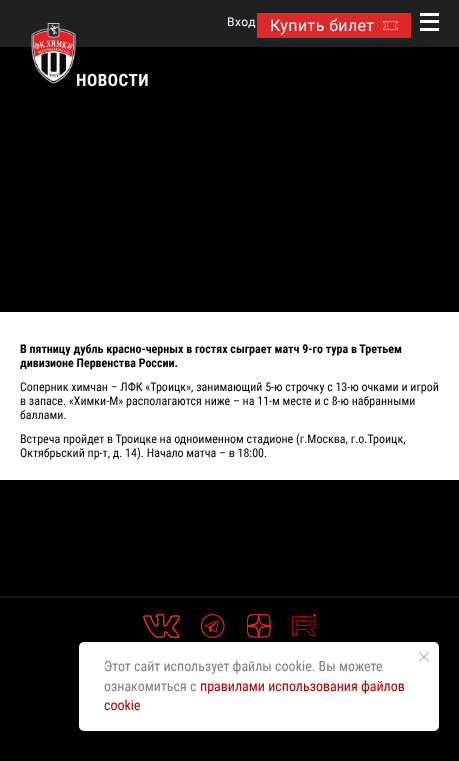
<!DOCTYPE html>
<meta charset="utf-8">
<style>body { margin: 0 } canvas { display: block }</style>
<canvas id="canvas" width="459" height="761"></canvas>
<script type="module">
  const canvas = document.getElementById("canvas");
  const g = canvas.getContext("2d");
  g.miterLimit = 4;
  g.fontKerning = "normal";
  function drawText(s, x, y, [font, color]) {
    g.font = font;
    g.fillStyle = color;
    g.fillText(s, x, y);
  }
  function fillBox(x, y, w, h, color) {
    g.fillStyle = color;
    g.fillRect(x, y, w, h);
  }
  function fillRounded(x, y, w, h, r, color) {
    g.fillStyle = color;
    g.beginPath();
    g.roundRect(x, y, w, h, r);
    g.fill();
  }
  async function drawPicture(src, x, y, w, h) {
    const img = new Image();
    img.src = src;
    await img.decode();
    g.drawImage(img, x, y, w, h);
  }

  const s1 = ["12px Roboto", "#FBFBFF"];
  const s2 = ["16px Roboto", "#FBFBFF"];
  const s3 = ["bold 17px Roboto Condensed", "#F1F2F2"];
  const s4 = ["bold 12px Roboto Condensed", "#000000"];
  const s5 = ["12px Roboto Condensed", "#000000"];
  const s6 = ["14px Roboto Condensed", "#808080"];
  const s7 = ["14px Roboto Condensed", "#AA0000"];

  fillBox(0, 0, 459, 761, "#000000");
  fillBox(0, 0, 459, 47, "#1E2021");
  await drawPicture("pic1.png", 31, 23, 45, 61);
  g.letterSpacing = "0.5px";
  drawText("Вход", 227, 26, s1);
  fillBox(257, 13, 154, 25, "#DD2929");
  g.letterSpacing = "0.4px";
  drawText("Купить билет", 270, 31, s2);
  await drawPicture("pic2.png", 383, 21, 15, 9);
  fillBox(420, 13, 19, 3, "#FFFFFF");
  fillBox(420, 28, 19, 3, "#FFFFFF");
  fillBox(420, 20, 19, 3, "#FFFFFF");
  g.letterSpacing = "0.5px";
  drawText("НОВОСТИ", 76, 86, s3);
  fillBox(0, 312, 459, 168, "#FFFFFF");
  g.letterSpacing = "0px";
  drawText("В пятницу дубль красно-черных в гостях сыграет матч 9-го тура в Третьем", 20, 353, s4);
  drawText("дивизионе Первенства России.", 20, 367, s4);
  drawText("Соперник химчан – ЛФК «Троицк», занимающий 5-ю строчку с 13-ю очками и игрой", 20, 391, s5);
  drawText("в запасе. «Химки-М» располагаются ниже – на 11-м месте и с 8-ю набранными", 20, 405, s5);
  drawText("баллами.", 20, 419, s5);
  drawText("Встреча пройдет в Троицке на одноименном стадионе (г.Москва, г.о.Троицк,", 20, 443, s5);
  drawText("Октябрьский пр-т, д. 14). Начало матча – в 18:00.", 20, 457, s5);
  fillBox(0, 596, 459, 2, "#151718");
  await drawPicture("pic3.png", 143, 614, 37, 24);
  await drawPicture("pic4.png", 201, 614, 24, 24);
  await drawPicture("pic5.png", 247, 614, 24, 24);
  await drawPicture("pic6.png", 292, 614, 24, 22);
  g.fillStyle = "rgba(0, 11, 48, 0.25)";
  g.filter = "blur(4px)";
  g.beginPath();
  g.roundRect(79, 642, 360, 89, 5);
  g.fill();
  g.filter = "none";
  fillRounded(79, 642, 360, 89, 5, "#FFFFFF");
  await drawPicture("pic7.png", 419, 652, 10, 10);
  drawText("Этот сайт использует файлы cookie. Вы можете", 104, 671, s6);
  drawText("ознакомиться с", 104, 691, s6);
  drawText("правилами использования файлов", 200, 691, s7);
  drawText("cookie", 104, 710, s7);
</script>
